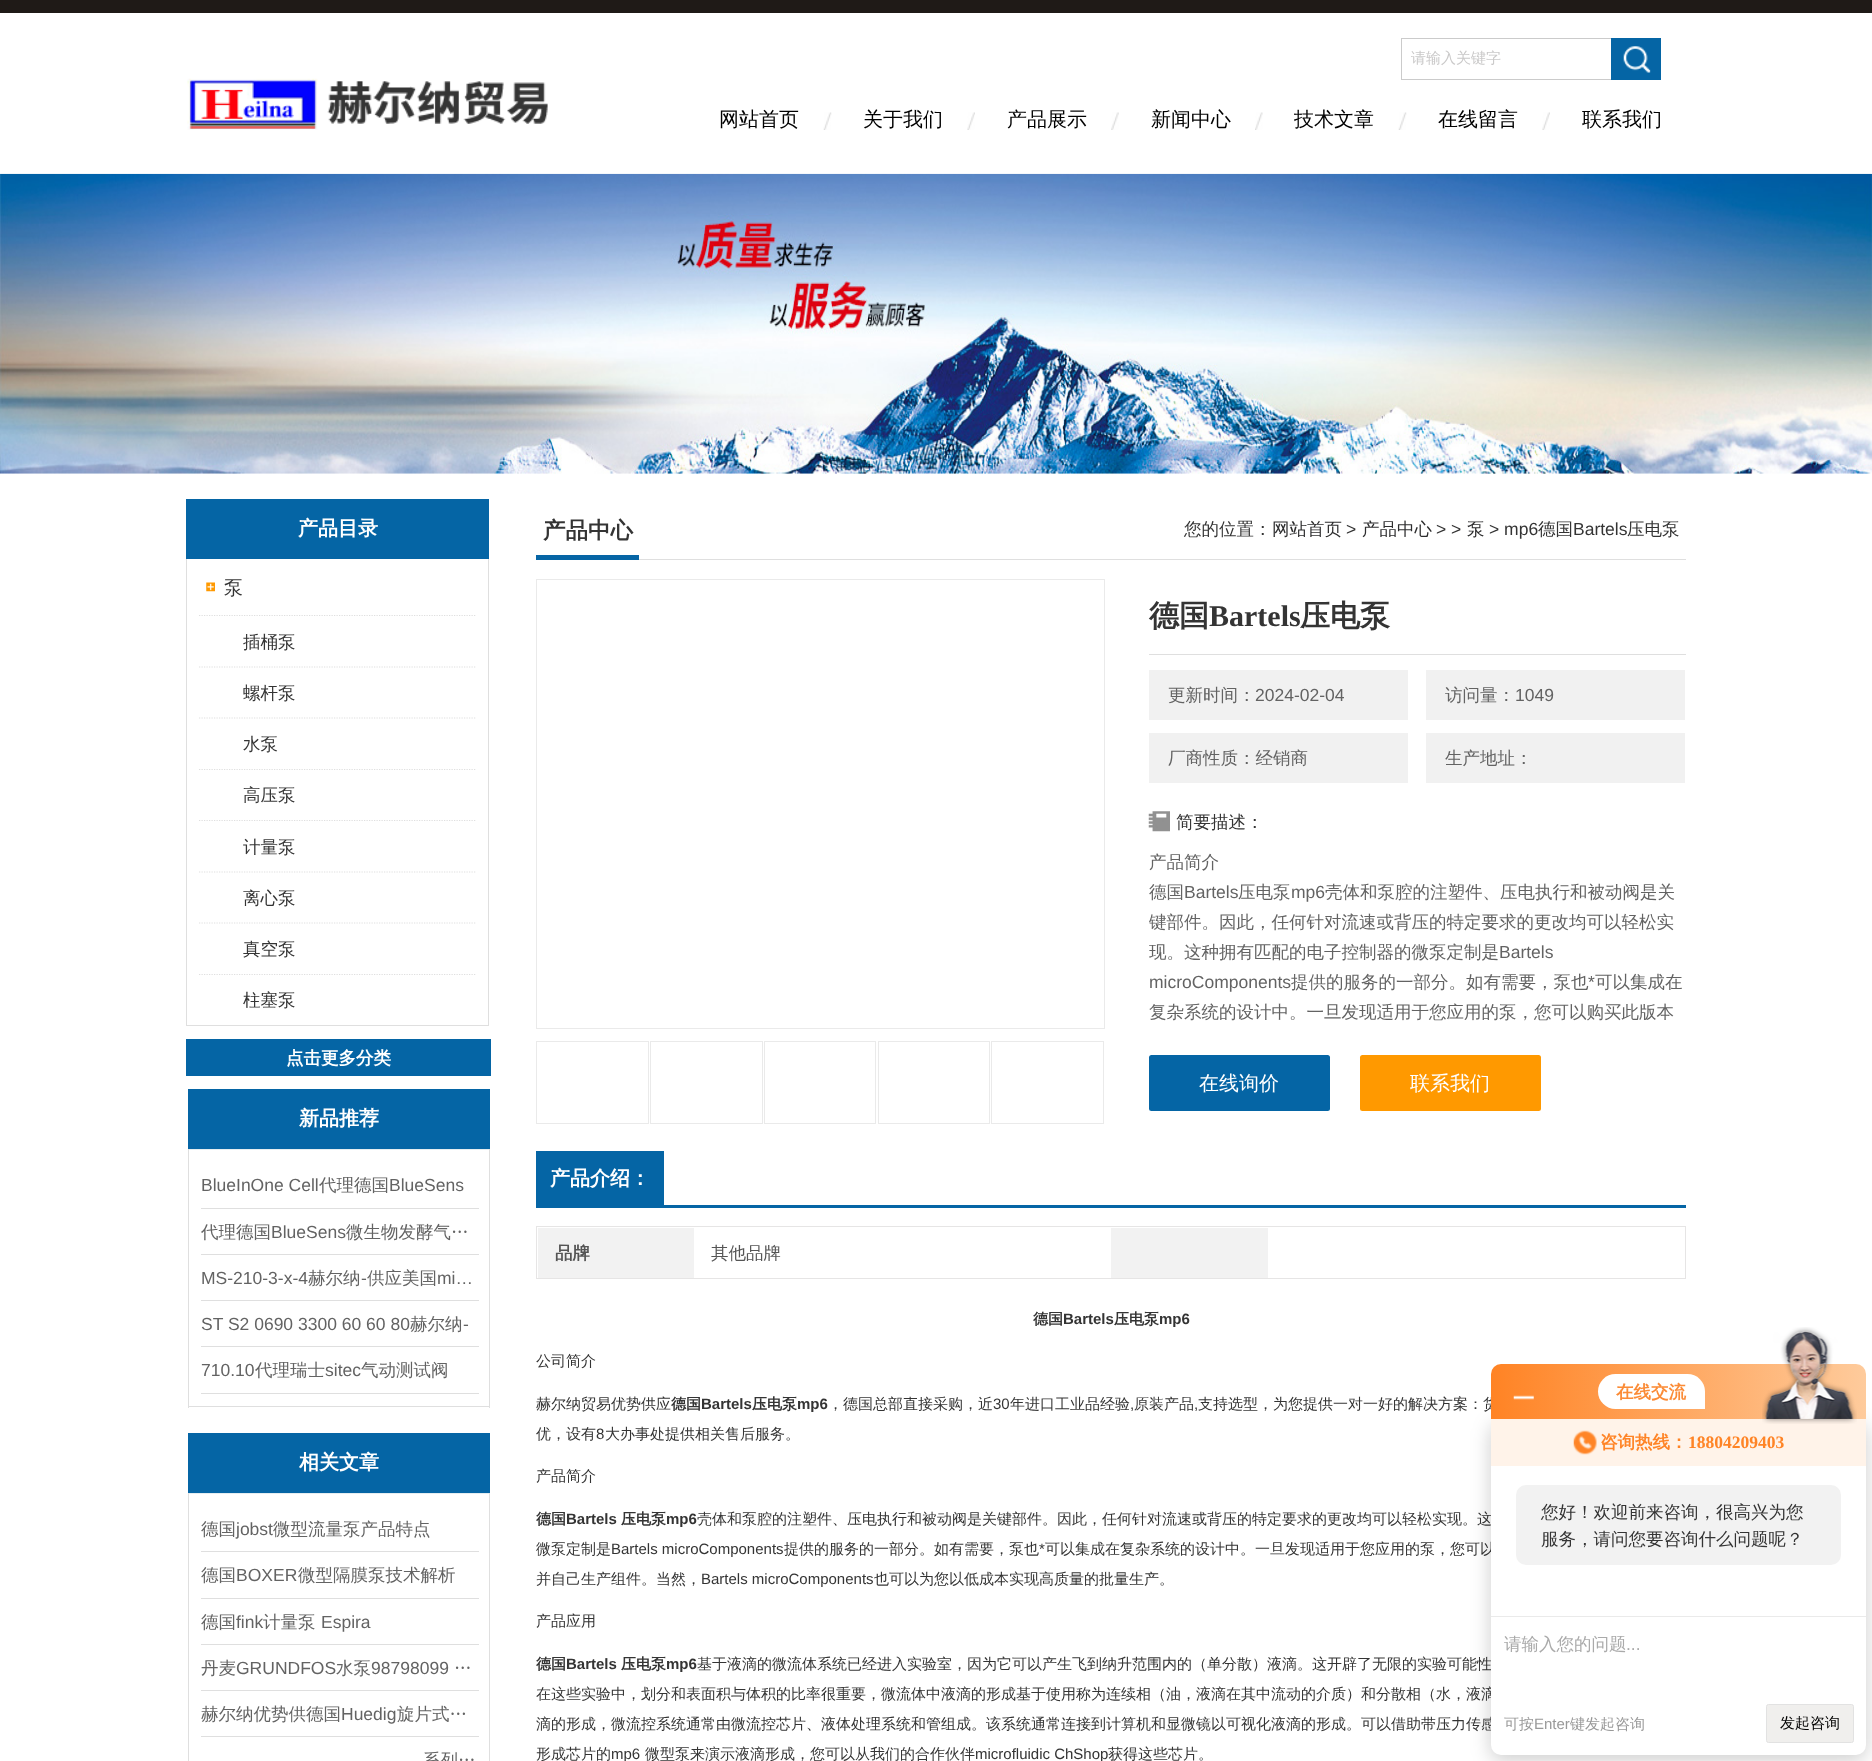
<!DOCTYPE html>
<meta charset="utf-8">
<style>body { margin: 0 } canvas { display: block }</style>
<canvas id="canvas" width="1872" height="1761"></canvas>
<script type="module">
  const canvas = document.getElementById("canvas");
  const g = canvas.getContext("2d");
  g.miterLimit = 4;
  g.fontKerning = "normal";
  function drawText(s, x, y, [font, color]) {
    g.font = font;
    g.fillStyle = color;
    g.fillText(s, x, y);
  }
  function fillBox(x, y, w, h, color) {
    g.fillStyle = color;
    g.fillRect(x, y, w, h);
  }
  function fillRounded(x, y, w, h, r, color) {
    g.fillStyle = color;
    g.beginPath();
    g.roundRect(x, y, w, h, r);
    g.fill();
  }
  async function drawPicture(src, x, y, w, h) {
    const img = new Image();
    img.src = src;
    await img.decode();
    g.drawImage(img, x, y, w, h);
  }
  let gradient;

  const s1 = ["500 15px WenQuanYi Zen Hei", "#CAC9C9"];
  const s2 = ["500 20px WenQuanYi Zen Hei", "#010101"];
  const s3 = ["bold 20px WenQuanYi Zen Hei", "#FFFFFF"];
  const s4 = ["500 19px WenQuanYi Zen Hei", "#343434"];
  const s5 = ["500 17.5px WenQuanYi Zen Hei", "#343434"];
  const s6 = ["bold 17.5px WenQuanYi Zen Hei", "#FFFFFF"];
  const s7 = ["17.5px Liberation Sans", "#636363"];
  const s8 = ["500 17.5px WenQuanYi Zen Hei", "#636363"];
  const s9 = ["bold 22.5px WenQuanYi Zen Hei", "#343434"];
  const s10 = ["500 17.5px WenQuanYi Zen Hei", "#2D2D2E"];
  const s11 = ["17.5px Liberation Sans", "#343434"];
  const s12 = ["bold 30px WenQuanYi Zen Hei", "#343434"];
  const s13 = ["bold 30px Liberation Serif", "#343434"];
  const s14 = ["500 20px WenQuanYi Zen Hei", "#FFFFFF"];
  const s15 = ["bold 17.5px WenQuanYi Zen Hei", "#555555"];
  const s16 = ["500 17.5px WenQuanYi Zen Hei", "#555555"];
  const s17 = ["bold 15px WenQuanYi Zen Hei", "#343434"];
  const s18 = ["bold 15px Liberation Sans", "#343434"];
  const s19 = ["500 15px WenQuanYi Zen Hei", "#343434"];
  const s20 = ["15px Liberation Sans", "#343434"];
  const s21 = ["bold 17.5px WenQuanYi Zen Hei", "#FB8B36"];
  const s22 = ["bold 17.5px WenQuanYi Zen Hei", "#FF8426"];
  const s23 = ["bold 17.5px Liberation Serif", "#FF8426"];
  const s24 = ["500 17.5px WenQuanYi Zen Hei", "#AAAAAA"];
  const s25 = ["17.5px Liberation Sans", "#AAAAAA"];
  const s26 = ["500 15px WenQuanYi Zen Hei", "#999999"];
  const s27 = ["15px Liberation Sans", "#999999"];
  const s28 = ["500 15px WenQuanYi Zen Hei", "#010101"];

  fillBox(0, 0, 1872, 1761, "#FFFFFF");
  fillBox(0, 0, 1872, 13, "#1F1A17");
  await drawPicture("pic1.png", 187, 78, 361, 52);
  fillBox(1401, 38, 210, 1, "#CBCBCB");
  fillBox(1401, 79, 210, 1, "#CBCBCB");
  fillBox(1401, 38, 1, 42, "#CBCBCB");
  drawText("请输入关键字", 1411, 63, s1);
  fillBox(1611, 38, 50, 42, "#0565A5");
  await drawPicture("pic2.png", 1623, 46, 28, 27);
  drawText("网站首页", 719, 126, s2);
  await drawPicture("pic3.png", 823, 112, 9, 18);
  drawText("关于我们", 863, 126, s2);
  await drawPicture("pic4.png", 967, 112, 8, 18);
  drawText("产品展示", 1007, 126, s2);
  await drawPicture("pic5.png", 1111, 112, 8, 18);
  drawText("新闻中心", 1151, 126, s2);
  await drawPicture("pic6.png", 1255, 112, 8, 18);
  drawText("技术文章", 1294, 126, s2);
  await drawPicture("pic3.png", 1398, 112, 9, 18);
  drawText("在线留言", 1438, 126, s2);
  await drawPicture("pic7.png", 1542, 112, 8, 18);
  drawText("联系我们", 1582, 126, s2);
  await drawPicture("pic8.png", 0, 173, 1872, 301);
  fillBox(186, 499, 303, 60, "#0565A5");
  drawText("产品目录", 298, 535, s3);
  fillBox(488, 559, 1, 467, "#DFDFDF");
  fillBox(186, 1025, 303, 1, "#DFDFDF");
  fillBox(186, 559, 1, 467, "#DFDFDF");
  await drawPicture("pic9.png", 206, 582, 9, 10);
  drawText("泵", 224, 594, s4);
  g.beginPath();
  g.moveTo(199, 615.5);
  g.lineTo(476, 615.5);
  g.strokeStyle = "#DFDFDF";
  g.lineWidth = 1.2;
  g.setLineDash([1.25, 1.25]);
  g.stroke();
  drawText("插桶泵", 243, 648, s5);
  g.beginPath();
  g.moveTo(199, 667);
  g.lineTo(476, 667);
  g.stroke();
  drawText("螺杆泵", 243, 699, s5);
  g.beginPath();
  g.moveTo(199, 718);
  g.lineTo(476, 718);
  g.stroke();
  drawText("水泵", 243, 750, s5);
  g.beginPath();
  g.moveTo(199, 769.5);
  g.lineTo(476, 769.5);
  g.stroke();
  drawText("高压泵", 243, 801, s5);
  g.beginPath();
  g.moveTo(199, 820.5);
  g.lineTo(476, 820.5);
  g.stroke();
  drawText("计量泵", 243, 853, s5);
  g.beginPath();
  g.moveTo(199, 872);
  g.lineTo(476, 872);
  g.stroke();
  drawText("离心泵", 243, 904, s5);
  g.beginPath();
  g.moveTo(199, 923);
  g.lineTo(476, 923);
  g.stroke();
  drawText("真空泵", 243, 955, s5);
  g.beginPath();
  g.moveTo(199, 974.5);
  g.lineTo(476, 974.5);
  g.stroke();
  drawText("柱塞泵", 243, 1006, s5);
  fillBox(186, 1039, 305, 37, "#0565A5");
  drawText("点击更多分类", 286, 1064, s6);
  fillBox(188, 1089, 302, 60, "#0565A5");
  drawText("新品推荐", 299, 1125, s3);
  fillBox(489, 1149, 1, 259, "#DFDFDF");
  fillBox(188, 1406, 302, 1, "#DFDFDF");
  fillBox(188, 1149, 1, 259, "#DFDFDF");
  fillBox(189, 1149, 300, 1, "#E5EDF0");
  fillBox(201, 1208, 278, 1, "#DFDFDF");
  drawText("BlueInOne Cell", 201, 1191, s7);
  drawText("代理德国", 319, 1191, s8);
  drawText("BlueSens", 389, 1191, s7);
  fillBox(201, 1254, 278, 1, "#DFDFDF");
  drawText("代理德国", 201, 1238, s8);
  drawText("BlueSens", 271, 1238, s7);
  drawText("微生物发酵气…", 346, 1238, s8);
  fillBox(201, 1300, 278, 1, "#DFDFDF");
  drawText("MS-210-3-x-4", 201, 1284, s7);
  drawText("赫尔纳", 308, 1284, s8);
  drawText("-", 361, 1284, s7);
  drawText("供应美国", 367, 1284, s8);
  drawText("mi…", 437, 1284, s7);
  fillBox(201, 1346, 278, 1, "#DFDFDF");
  drawText("ST S2 0690 3300 60 60 80", 201, 1330, s7);
  drawText("赫尔纳", 410, 1330, s8);
  drawText("-", 463, 1330, s7);
  fillBox(201, 1393, 278, 1, "#DFDFDF");
  drawText("710.10", 201, 1376, s7);
  drawText("代理瑞士", 255, 1376, s8);
  drawText("sitec", 325, 1376, s7);
  drawText("气动测试阀", 361, 1376, s8);
  fillBox(188, 1433, 302, 60, "#0565A5");
  drawText("相关文章", 299, 1469, s3);
  fillBox(489, 1493, 1, 268, "#DFDFDF");
  fillBox(188, 1493, 1, 268, "#DFDFDF");
  fillBox(189, 1493, 300, 1, "#E5EDF0");
  fillBox(201, 1551, 278, 1, "#DFDFDF");
  drawText("德国", 201, 1535, s8);
  drawText("jobst", 236, 1535, s7);
  drawText("微型流量泵产品特点", 273, 1535, s8);
  fillBox(201, 1598, 278, 1, "#DFDFDF");
  drawText("德国", 201, 1581, s8);
  drawText("BOXER", 236, 1581, s7);
  drawText("微型隔膜泵技术解析", 298, 1581, s8);
  fillBox(201, 1644, 278, 1, "#DFDFDF");
  drawText("德国", 201, 1628, s8);
  drawText("fink", 236, 1628, s7);
  drawText("计量泵", 263, 1628, s8);
  drawText("Espira", 321, 1628, s7);
  fillBox(201, 1690, 278, 1, "#DFDFDF");
  drawText("丹麦", 201, 1674, s8);
  drawText("GRUNDFOS", 236, 1674, s7);
  drawText("水泵", 336, 1674, s8);
  drawText("98798099", 371, 1674, s7);
  drawText("…", 454, 1674, s8);
  fillBox(201, 1736, 278, 1, "#DFDFDF");
  drawText("赫尔纳优势供德国", 201, 1720, s8);
  drawText("Huedig", 341, 1720, s7);
  drawText("旋片式…", 397, 1720, s8);
  drawText("系列…", 423, 1766, s8);
  fillBox(639, 559, 1047, 1, "#DFDFDF");
  fillBox(536, 555, 103, 5, "#0665A5");
  drawText("产品中心", 543, 538, s9);
  drawText("您的位置：", 1184, 535, s5);
  drawText("网站首页", 1272, 535, s10);
  drawText(">", 1346, 535, s11);
  drawText("产品中心", 1362, 535, s10);
  drawText("> >", 1436, 535, s11);
  drawText("泵", 1467, 535, s10);
  drawText("> mp6", 1489, 535, s11);
  drawText("德国", 1538, 535, s5);
  drawText("Bartels", 1573, 535, s11);
  drawText("压电泵", 1627, 535, s5);
  g.strokeStyle = "#EAEAEA";
  g.lineWidth = 1;
  g.setLineDash([]);
  g.strokeRect(536.5, 579.5, 568, 449);
  g.strokeRect(536.5, 1041.5, 112, 82);
  g.strokeRect(650.5, 1041.5, 112, 82);
  g.strokeRect(764.5, 1041.5, 111, 82);
  g.strokeRect(878.5, 1041.5, 111, 82);
  g.strokeRect(991.5, 1041.5, 112, 82);
  fillBox(1149, 654, 537, 1, "#DFDFDF");
  drawText("德国", 1149, 626, s12);
  drawText("Bartels", 1209, 626, s13);
  drawText("压电泵", 1300, 626, s12);
  fillBox(1149, 670, 259, 50, "#F1F1F1");
  drawText("更新时间：", 1168, 701, s8);
  drawText("2024-02-04", 1255, 701, s7);
  fillBox(1426, 670, 259, 50, "#F1F1F1");
  drawText("访问量：", 1445, 701, s8);
  drawText("1049", 1515, 701, s7);
  fillBox(1149, 733, 259, 50, "#F1F1F1");
  drawText("厂商性质：经销商", 1168, 764, s8);
  fillBox(1426, 733, 259, 50, "#F1F1F1");
  drawText("生产地址：", 1445, 764, s8);
  await drawPicture("pic10.png", 1148, 811, 22, 21);
  drawText("简要描述：", 1176, 828, s5);
  drawText("产品简介", 1149, 868, s8);
  drawText("德国", 1149, 898, s8);
  drawText("Bartels", 1184, 898, s7);
  drawText("压电泵", 1238, 898, s8);
  drawText("mp6", 1291, 898, s7);
  drawText("壳体和泵腔的注塑件、压电执行和被动阀是关", 1325, 898, s8);
  drawText("键部件。因此，任何针对流速或背压的特定要求的更改均可以轻松实", 1149, 928, s8);
  drawText("现。这种拥有匹配的电子控制器的微泵定制是", 1149, 958, s8);
  drawText("Bartels", 1499, 958, s7);
  drawText("microComponents", 1149, 988, s7);
  drawText("提供的服务的一部分。如有需要，泵也", 1291, 988, s8);
  drawText("*", 1588, 988, s7);
  drawText("可以集成在", 1595, 988, s8);
  drawText("复杂系统的设计中。一旦发现适用于您应用的泵，您可以购买此版本", 1149, 1018, s8);
  fillRounded(1149, 1055, 181, 56, 2.5, "#0565A5");
  drawText("在线询价", 1199, 1090, s14);
  fillRounded(1360, 1055, 181, 56, 2.5, "#FF9900");
  drawText("联系我们", 1410, 1090, s14);
  fillBox(536, 1205, 1150, 3, "#0565A5");
  fillBox(536, 1151, 128, 54, "#0565A5");
  drawText("产品介绍：", 550, 1185, s3);
  fillBox(536, 1226, 1150, 1, "#E6E5E5");
  fillBox(1685, 1226, 1, 53, "#E6E5E5");
  fillBox(536, 1226, 1, 53, "#E6E5E5");
  fillBox(538, 1228, 156, 50, "#F2F2F2");
  drawText("品牌", 555, 1259, s15);
  drawText("其他品牌", 711, 1259, s16);
  fillBox(1111, 1228, 157, 50, "#F2F2F2");
  fillBox(536, 1278, 1150, 1, "#E6E5E5");
  drawText("德国", 1033, 1324, s17);
  drawText("Bartels", 1063, 1324, s18);
  drawText("压电泵", 1114, 1324, s17);
  drawText("mp6", 1159, 1324, s18);
  drawText("公司简介", 536, 1366, s19);
  drawText("赫尔纳贸易优势供应", 536, 1409, s19);
  drawText("德国", 671, 1409, s17);
  drawText("Bartels", 701, 1409, s18);
  drawText("压电泵", 752, 1409, s17);
  drawText("mp6", 797, 1409, s18);
  drawText("，德国总部直接采购，近", 828, 1409, s19);
  drawText("30", 993, 1409, s20);
  drawText("年进口工业品经验", 1010, 1409, s19);
  drawText(",", 1130, 1409, s20);
  drawText("原装产品", 1134, 1409, s19);
  drawText(",", 1194, 1409, s20);
  drawText("支持选型，为您提供一对一好的解决方案：货", 1198, 1409, s19);
  drawText("优，设有", 536, 1439, s19);
  drawText("8", 596, 1439, s20);
  drawText("大办事处提供相关售后服务。", 605, 1439, s19);
  drawText("产品简介", 536, 1481, s19);
  drawText("德国", 536, 1524, s17);
  drawText("Bartels", 566, 1524, s18);
  drawText("压电泵", 621, 1524, s17);
  drawText("mp6", 666, 1524, s18);
  drawText("壳体和泵腔的注塑件、压电执行和被动阀是关键部件。因此，任何针对流速或背压的特定要求的更改均可以轻松实现。这", 697, 1524, s19);
  drawText("微泵定制是", 536, 1554, s19);
  drawText("Bartels microComponents", 611, 1554, s20);
  drawText("提供的服务的一部分。如有需要，泵也", 784, 1554, s19);
  drawText("*", 1039, 1554, s20);
  drawText("可以集成在复杂系统的设计中。一旦发现适用于您应用的泵，您可以", 1045, 1554, s19);
  drawText("并自己生产组件。当然，", 536, 1584, s19);
  drawText("Bartels microComponents", 701, 1584, s20);
  drawText("也可以为您以低成本实现高质量的批量生产。", 874, 1584, s19);
  drawText("产品应用", 536, 1626, s19);
  drawText("德国", 536, 1669, s17);
  drawText("Bartels", 566, 1669, s18);
  drawText("压电泵", 621, 1669, s17);
  drawText("mp6", 666, 1669, s18);
  drawText("基于液滴的微流体系统已经进入实验室，因为它可以产生飞到纳升范围内的（单分散）液滴。这开辟了无限的实验可能性", 697, 1669, s19);
  drawText("在这些实验中，划分和表面积与体积的比率很重要，微流体中液滴的形成基于使用称为连续相（油，液滴在其中流动的介质）和分散相（水，液滴", 536, 1699, s19);
  drawText("滴的形成，微流控系统通常由微流控芯片、液体处理系统和管组成。该系统通常连接到计算机和显微镜以可视化液滴的形成。可以借助带压力传感", 536, 1729, s19);
  drawText("形成芯片的", 536, 1759, s19);
  drawText("mp6", 611, 1759, s20);
  drawText("微型泵来演示液滴形成，您可以从我们的合作伙伴", 645, 1759, s19);
  drawText("microfluidic ChShop", 975, 1759, s20);
  drawText("获得这些芯片。", 1108, 1759, s19);
  g.fillStyle = "rgba(0, 0, 0, 0.2)";
  g.filter = "blur(10px)";
  g.beginPath();
  g.roundRect(1491, 1424, 375, 336, 10);
  g.fill();
  g.filter = "none";
  gradient = g.createLinearGradient(1491, 1391, 1866, 1391);
  gradient.addColorStop(0, "#FF8324");
  gradient.addColorStop(1, "#FECB9C");
  g.fillStyle = gradient;
  g.beginPath();
  g.roundRect(1491, 1364, 375, 55, [10, 10, 0, 0]);
  g.fill();
  await drawPicture("pic11.png", 1513, 1395, 21, 5);
  g.fillStyle = "#FFFFFF";
  g.beginPath();
  g.roundRect(1598, 1374, 107, 35, [17.5, 17.5, 0, 17.5]);
  g.fill();
  drawText("在线交流", 1616, 1398, s21);
  g.fillStyle = "#FFFFFF";
  g.beginPath();
  g.roundRect(1491, 1419, 375, 336, [0, 0, 10, 10]);
  g.fill();
  fillBox(1491, 1419, 375, 47, "#FFF3E9");
  await drawPicture("pic12.png", 1762, 1327, 95, 97);
  await drawPicture("pic13.png", 1573, 1430, 24, 25);
  drawText("咨询热线：", 1600, 1448, s22);
  drawText("18804209403", 1688, 1448, s23);
  fillRounded(1516, 1485, 325, 80, 10, "#F2F2F2");
  drawText("您好！欢迎前来咨询，很高兴为您", 1541, 1518, s5);
  drawText("服务，请问您要咨询什么问题呢？", 1541, 1545, s5);
  fillBox(1491, 1616, 375, 1, "#EAEAEA");
  drawText("请输入您的问题", 1504, 1650, s24);
  drawText("...", 1626, 1650, s25);
  drawText("可按", 1504, 1729, s26);
  drawText("Enter", 1534, 1729, s27);
  drawText("键发起咨询", 1570, 1729, s26);
  g.fillStyle = "#F0EFED";
  g.beginPath();
  g.roundRect(1766.5, 1704.5, 87, 38, 2);
  g.fill();
  g.strokeStyle = "#E2E2E2";
  g.stroke();
  drawText("发起咨询", 1780, 1728, s28);
</script>
